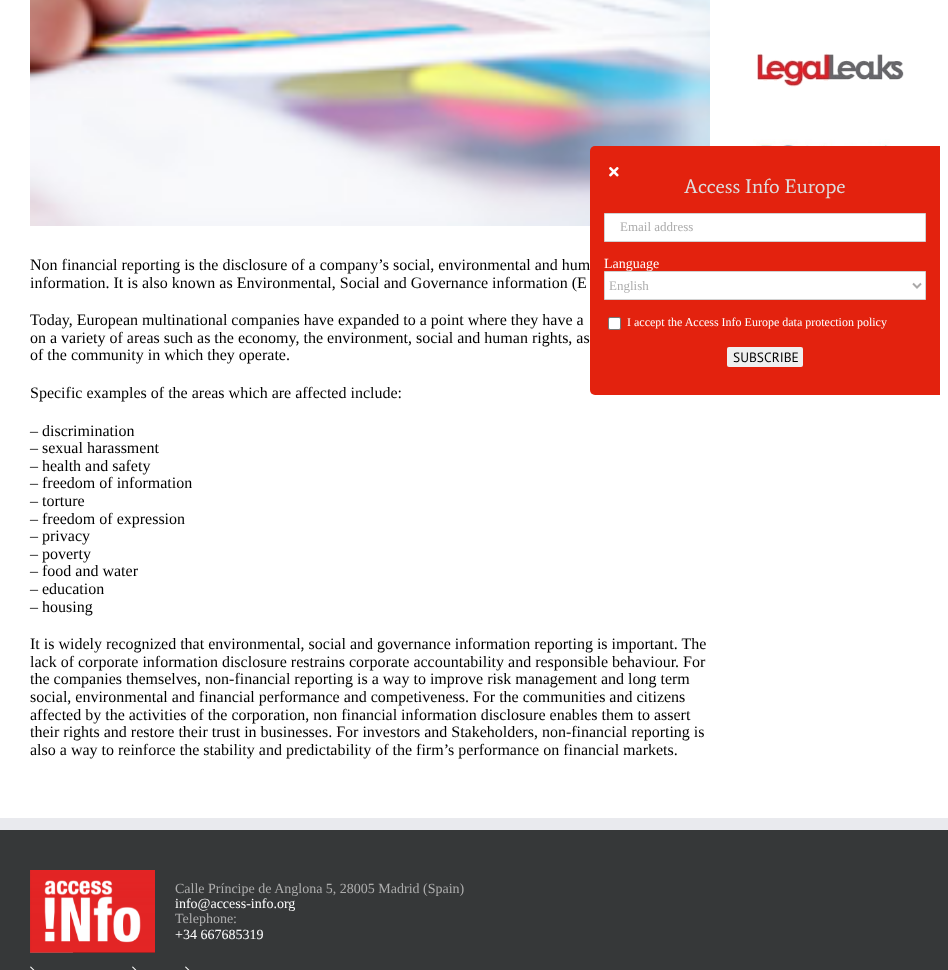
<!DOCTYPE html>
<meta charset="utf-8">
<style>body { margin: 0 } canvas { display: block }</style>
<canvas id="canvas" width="948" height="970"></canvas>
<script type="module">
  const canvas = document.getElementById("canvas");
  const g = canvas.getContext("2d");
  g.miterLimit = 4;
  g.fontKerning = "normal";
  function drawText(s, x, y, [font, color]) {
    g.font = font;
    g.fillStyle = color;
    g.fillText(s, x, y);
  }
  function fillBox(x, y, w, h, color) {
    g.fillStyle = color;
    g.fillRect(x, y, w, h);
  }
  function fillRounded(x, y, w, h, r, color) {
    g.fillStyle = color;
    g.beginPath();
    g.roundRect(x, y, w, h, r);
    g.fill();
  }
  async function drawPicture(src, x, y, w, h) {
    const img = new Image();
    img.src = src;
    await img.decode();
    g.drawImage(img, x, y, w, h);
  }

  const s1 = ["16px Liberation Serif", "#000000"];
  const s2 = ["20px Average", "#DDDDDD"];
  const s3 = ["13px Liberation Serif", "#ADADAD"];
  const s4 = ["14px Liberation Serif", "#FFFFFF"];
  const s5 = ["12px Liberation Serif", "#FFFFFF"];
  const s6 = ["13.5px PT Sans", "#000000"];
  const s7 = ["14px Liberation Serif", "#ADADAD"];

  fillBox(0, 0, 948, 970, "#FFFFFF");
  fillBox(0, 830, 948, 140, "#363839");
  fillBox(0, 818, 948, 12, "#E9EAEE");
  await drawPicture("pic6.png", 30, 0, 680, 226);
  drawText("Non financial reporting is the disclosure of a company’s social, environmental and hum", 30, 270, s1);
  g.fillStyle = "#E3220E";
  g.beginPath();
  g.roundRect(590, 146, 350, 249, [5, 0, 0, 5]);
  g.fill();
  await drawPicture("pic1.png", 609, 167, 10, 10);
  drawText("Access Info Europe", 684, 193, s2);
  g.fillStyle = "#FFFFFF";
  g.beginPath();
  g.rect(604.5, 213.5, 321, 28);
  g.fill();
  g.strokeStyle = "#D2D2D2";
  g.stroke();
  drawText("Email address", 620, 231, s3);
  drawText("Language", 604, 268, s4);
  g.beginPath();
  g.rect(604.5, 271.5, 321, 28);
  g.fill();
  g.stroke();
  g.beginPath();
  g.moveTo(913, 283.5);
  g.lineTo(917, 287.5);
  g.lineTo(921, 283.5);
  g.strokeStyle = "#AAA9A9";
  g.lineWidth = 2;
  g.stroke();
  drawText("English", 609, 290, s3);
  g.fillStyle = "#FFFFFF";
  g.beginPath();
  g.roundRect(608.5, 317.5, 12, 12, 1.5);
  g.fill();
  g.strokeStyle = "#767676";
  g.lineWidth = 1;
  g.stroke();
  drawText("I accept the Access Info Europe data protection policy", 627, 326, s5);
  fillRounded(727, 347, 76, 20, 2, "#EFEFEF");
  drawText("SUBSCRIBE", 733, 362, s6);
  await drawPicture("pic2.png", 30, 870, 125, 83);
  drawText("Calle Príncipe de Anglona 5, 28005 Madrid (Spain)", 175, 893, s7);
  drawText("info@access-info.org", 175, 908, s4);
  drawText("Telephone:", 175, 923, s7);
  drawText("+34 667685319", 175, 939, s4);
  await drawPicture("pic3.png", 30, 966, 5, 4);
  await drawPicture("pic3.png", 132, 966, 5, 4);
  await drawPicture("pic3.png", 185, 966, 5, 4);
  await drawPicture("pic4.png", 757, 53, 147, 34);
  await drawPicture("pic5.png", 753, 139, 141, 7);
  drawText("information. It is also known as Environmental, Social and Governance information (E", 30, 288, s1);
  drawText("Today, European multinational companies have expanded to a point where they have a", 30, 325, s1);
  drawText("on a variety of areas such as the economy, the environment, social and human rights, as", 30, 343, s1);
  drawText("of the community in which they operate.", 30, 360, s1);
  drawText("Specific examples of the areas which are affected include:", 30, 398, s1);
  drawText("– discrimination", 30, 436, s1);
  drawText("– sexual harassment", 30, 453, s1);
  drawText("– health and safety", 30, 471, s1);
  drawText("– freedom of information", 30, 488, s1);
  drawText("– torture", 30, 506, s1);
  drawText("– freedom of expression", 30, 524, s1);
  drawText("– privacy", 30, 541, s1);
  drawText("– poverty", 30, 559, s1);
  drawText("– food and water", 30, 576, s1);
  drawText("– education", 30, 594, s1);
  drawText("– housing", 30, 612, s1);
  drawText("It is widely recognized that environmental, social and governance information reporting is important. The", 30, 649, s1);
  drawText("lack of corporate information disclosure restrains corporate accountability and responsible behaviour. For", 30, 667, s1);
  drawText("the companies themselves, non-financial reporting is a way to improve risk management and long term", 30, 684, s1);
  drawText("social, environmental and financial performance and competiveness. For the communities and citizens", 30, 702, s1);
  drawText("affected by the activities of the corporation, non financial information disclosure enables them to assert", 30, 720, s1);
  drawText("their rights and restore their trust in businesses. For investors and Stakeholders, non-financial reporting is", 30, 737, s1);
  drawText("also a way to reinforce the stability and predictability of the firm’s performance on financial markets.", 30, 755, s1);
</script>
